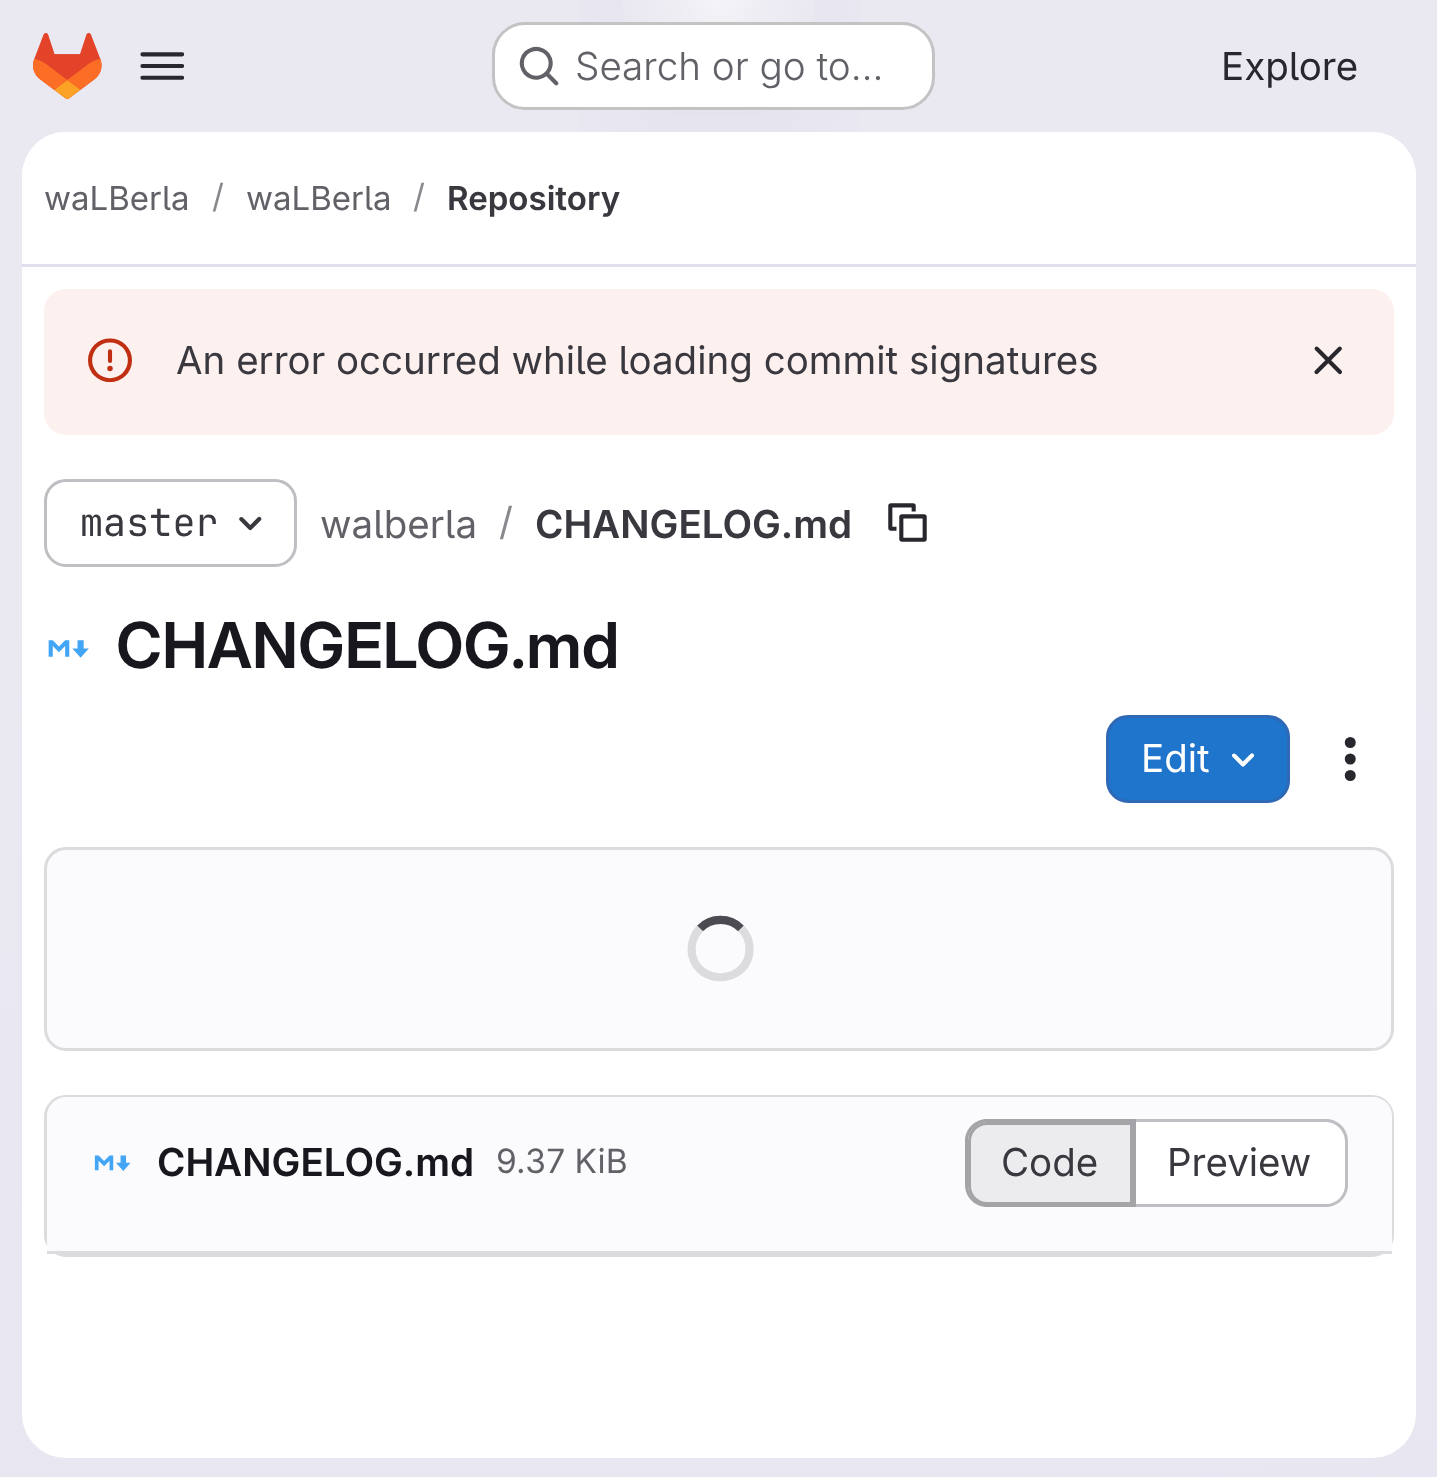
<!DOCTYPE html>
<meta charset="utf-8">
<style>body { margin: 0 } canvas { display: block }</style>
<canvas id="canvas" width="1437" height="1477"></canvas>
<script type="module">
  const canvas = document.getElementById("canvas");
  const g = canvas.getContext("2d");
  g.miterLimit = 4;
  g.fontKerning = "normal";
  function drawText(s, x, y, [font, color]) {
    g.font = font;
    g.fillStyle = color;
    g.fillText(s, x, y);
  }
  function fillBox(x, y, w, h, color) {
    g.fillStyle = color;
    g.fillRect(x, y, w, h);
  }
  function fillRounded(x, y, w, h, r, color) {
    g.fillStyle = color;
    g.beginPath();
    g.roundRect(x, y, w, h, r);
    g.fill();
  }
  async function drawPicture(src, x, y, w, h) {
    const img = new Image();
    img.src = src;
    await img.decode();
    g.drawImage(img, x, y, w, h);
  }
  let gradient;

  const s1 = ["300 38.5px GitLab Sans", "#626168"];
  const s2 = ["38.5px GitLab Sans", "#28272D"];
  const s3 = ["33px GitLab Sans", "#626168"];
  const s4 = ["33px GitLab Sans", "#89888D"];
  const s5 = ["600 33px 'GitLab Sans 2'", "#3A383F"];
  const s6 = ["38.5px GitLab Sans", "#3A383F"];
  const s7 = ["38.5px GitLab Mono", "#3A383F"];
  const s8 = ["38.5px GitLab Sans", "#626168"];
  const s9 = ["38.5px GitLab Sans", "#89888D"];
  const s10 = ["600 38.5px 'GitLab Sans 2'", "#3A383F"];
  const s11 = ["600 63.25px GitLab Sans", "#18171D"];
  const s12 = ["38.5px GitLab Sans", "#FFFFFF"];
  const s13 = ["600 38.5px 'GitLab Sans 2'", "#18171D"];
  const s14 = ["33.5px GitLab Sans", "#626168"];

  fillBox(0, 0, 1437, 1477, "#FFFFFF");
  gradient = g.createLinearGradient(867, 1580, 571, -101);
  gradient.addColorStop(0, "#E8E6F0");
  gradient.addColorStop(0.7, "#EAE9F2");
  g.fillStyle = gradient;
  g.fillRect(0, 0, 1437, 1477);
  gradient = g.createRadialGradient(719, 0, 0, 719, 0, 719);
  gradient.addColorStop(0, "#E4E2ED");
  gradient.addColorStop(0.27, "rgba(228, 226, 237, 0)");
  g.fillStyle = gradient;
  g.beginPath();
  g.rect(579, 0, 281, 132);
  g.save();
  g.clip();
  g.scale(1, 1480 / 719);
  g.fillRect(0, 0, 1437, 718);
  g.restore();
  gradient = g.createRadialGradient(719, 0, 0, 719, 0, 719);
  gradient.addColorStop(0, "#E4E2EC");
  gradient.addColorStop(0.19, "rgba(228, 226, 236, 0)");
  g.fillStyle = gradient;
  g.beginPath();
  g.rect(669, 2, 97, 114);
  g.save();
  g.clip();
  g.scale(1, 1480 / 719);
  g.fillRect(0, 0, 1437, 718);
  g.restore();
  gradient = g.createRadialGradient(719, 0, 0, 719, 0, 1645);
  gradient.addColorStop(0, "rgba(255, 255, 255, 0.6)");
  gradient.addColorStop(0.07, "rgba(255, 255, 255, 0)");
  g.fillStyle = gradient;
  g.fillRect(623, 0, 192, 97);
  await drawPicture("pic1.png", 33, 33, 69, 66);
  await drawPicture("pic2.png", 140, 52, 45, 28);
  fillRounded(492, 22, 443, 88, 33, "#FFFFFF");
  g.beginPath();
  g.roundRect(493.5, 23.5, 440, 85, 31.5);
  g.strokeStyle = "rgba(5, 5, 6, 0.24)";
  g.lineWidth = 3;
  g.stroke();
  await drawPicture("pic3.png", 519, 46, 40, 40);
  drawText("Search or go to…", 575, 80, s1);
  drawText("Explore", 1221, 80, s2);
  fillRounded(22, 132, 1394, 1326, 44, "#FFFFFF");
  g.beginPath();
  g.roundRect(22, 132, 1394, 135, [44, 44, 0, 0]);
  g.fill();
  fillBox(22, 264, 1394, 3, "#E1DFEC");
  drawText("waLBerla", 44, 210, s3);
  drawText("/", 212, 208, s4);
  drawText("waLBerla", 246, 210, s3);
  drawText("/", 413, 208, s4);
  drawText("Repository", 447, 210, s5);
  fillRounded(44, 289, 1350, 146, 22, "#FCF1EF");
  await drawPicture("pic4.png", 88, 338, 44, 45);
  drawText("An error occurred while loading commit signatures", 176, 374, s6);
  await drawPicture("pic5.png", 1314, 346, 28, 29);
  g.beginPath();
  g.roundRect(45.5, 480.5, 250, 85, 20.5);
  g.strokeStyle = "#BFBFC3";
  g.stroke();
  drawText("master", 80, 536, s7);
  await drawPicture("pic6.png", 239, 516, 23, 15);
  drawText("walberla", 320, 538, s8);
  drawText("/", 499, 535, s9);
  drawText("CHANGELOG.md", 535, 538, s10);
  await drawPicture("pic7.png", 888, 503, 39, 39);
  await drawPicture("pic8.png", 48, 640, 41, 18);
  drawText("CHANGELOG.md", 116, 668, s11);
  g.fillStyle = "#1F75CB";
  g.beginPath();
  g.roundRect(1107.5, 716.5, 181, 85, 20.5);
  g.fill();
  g.strokeStyle = "#2F68B4";
  g.stroke();
  drawText("Edit", 1141, 772, s12);
  await drawPicture("pic9.png", 1231, 753, 24, 14);
  await drawPicture("pic10.png", 1344, 737, 12, 44);
  g.fillStyle = "#FBFAFD";
  g.beginPath();
  g.roundRect(45.5, 848.5, 1347, 201, 20.5);
  g.fill();
  g.strokeStyle = "#DCDCDE";
  g.stroke();
  g.beginPath();
  g.moveTo(700, 928.5);
  g.bezierCurveTo(711, 917, 730, 917, 741, 928.5);
  g.strokeStyle = "#4C4B51";
  g.lineWidth = 8.2;
  g.stroke();
  g.beginPath();
  g.moveTo(741, 928.5);
  g.bezierCurveTo(746.5, 933.5, 749.5, 941, 749.5, 949);
  g.bezierCurveTo(749.5, 983, 699, 988, 692, 954.5);
  g.bezierCurveTo(690.5, 945, 693.5, 935, 700, 928.5);
  g.strokeStyle = "#DCDCDE";
  g.stroke();
  g.beginPath();
  g.roundRect(45.5, 1096.5, 1347, 159, 20.5);
  g.lineWidth = 3;
  g.stroke();
  g.beginPath();
  g.roundRect(47, 1097, 1345, 157, [19, 19, 0, 0]);
  g.fill();
  fillBox(47, 1251, 1345, 3, "#DCDCDE");
  await drawPicture("pic11.png", 94, 1155, 37, 16);
  drawText("CHANGELOG.md", 157, 1176, s13);
  drawText("9.37 KiB", 496, 1173, s14);
  g.fillStyle = "#ECECEF";
  g.beginPath();
  g.roundRect(969.5, 1123.5, 162, 80, [17.5, 0, 0, 17.5]);
  g.fill();
  g.strokeStyle = "#A4A3A8";
  g.stroke();
  g.fillStyle = "#A4A3A8";
  g.beginPath();
  g.moveTo(987, 1119);
  g.lineTo(1133, 1119);
  g.lineTo(1133, 1207);
  g.lineTo(987, 1207);
  g.bezierCurveTo(975, 1207, 965, 1197, 965, 1185);
  g.lineTo(965, 1141);
  g.bezierCurveTo(965, 1129, 975, 1119, 987, 1119);
  g.closePath();
  g.moveTo(987, 1122);
  g.lineTo(1133, 1122);
  g.lineTo(1133, 1204);
  g.lineTo(987, 1204);
  g.bezierCurveTo(977, 1204, 968, 1196, 968, 1185);
  g.lineTo(968, 1141);
  g.bezierCurveTo(968, 1131, 977, 1122, 987, 1122);
  g.closePath();
  g.fill("evenodd");
  drawText("Code", 1001, 1176, s6);
  g.fillStyle = "#FFFFFF";
  g.beginPath();
  g.roundRect(1136, 1122, 209, 83, [0, 19, 19, 0]);
  g.fill();
  g.fillStyle = "#BFBFC3";
  g.beginPath();
  g.moveTo(1136, 1119);
  g.lineTo(1326, 1119);
  g.bezierCurveTo(1338, 1119, 1348, 1129, 1348, 1141);
  g.lineTo(1348, 1185);
  g.bezierCurveTo(1348, 1197, 1338, 1207, 1326, 1207);
  g.lineTo(1136, 1207);
  g.closePath();
  g.moveTo(1136, 1122);
  g.lineTo(1326, 1122);
  g.bezierCurveTo(1336, 1122, 1345, 1131, 1345, 1141);
  g.lineTo(1345, 1185);
  g.bezierCurveTo(1345, 1196, 1336, 1204, 1326, 1204);
  g.lineTo(1136, 1204);
  g.closePath();
  g.fill("evenodd");
  fillBox(1133, 1119, 3, 88, "#A4A3A8");
  drawText("Preview", 1167, 1176, s6);
</script>
